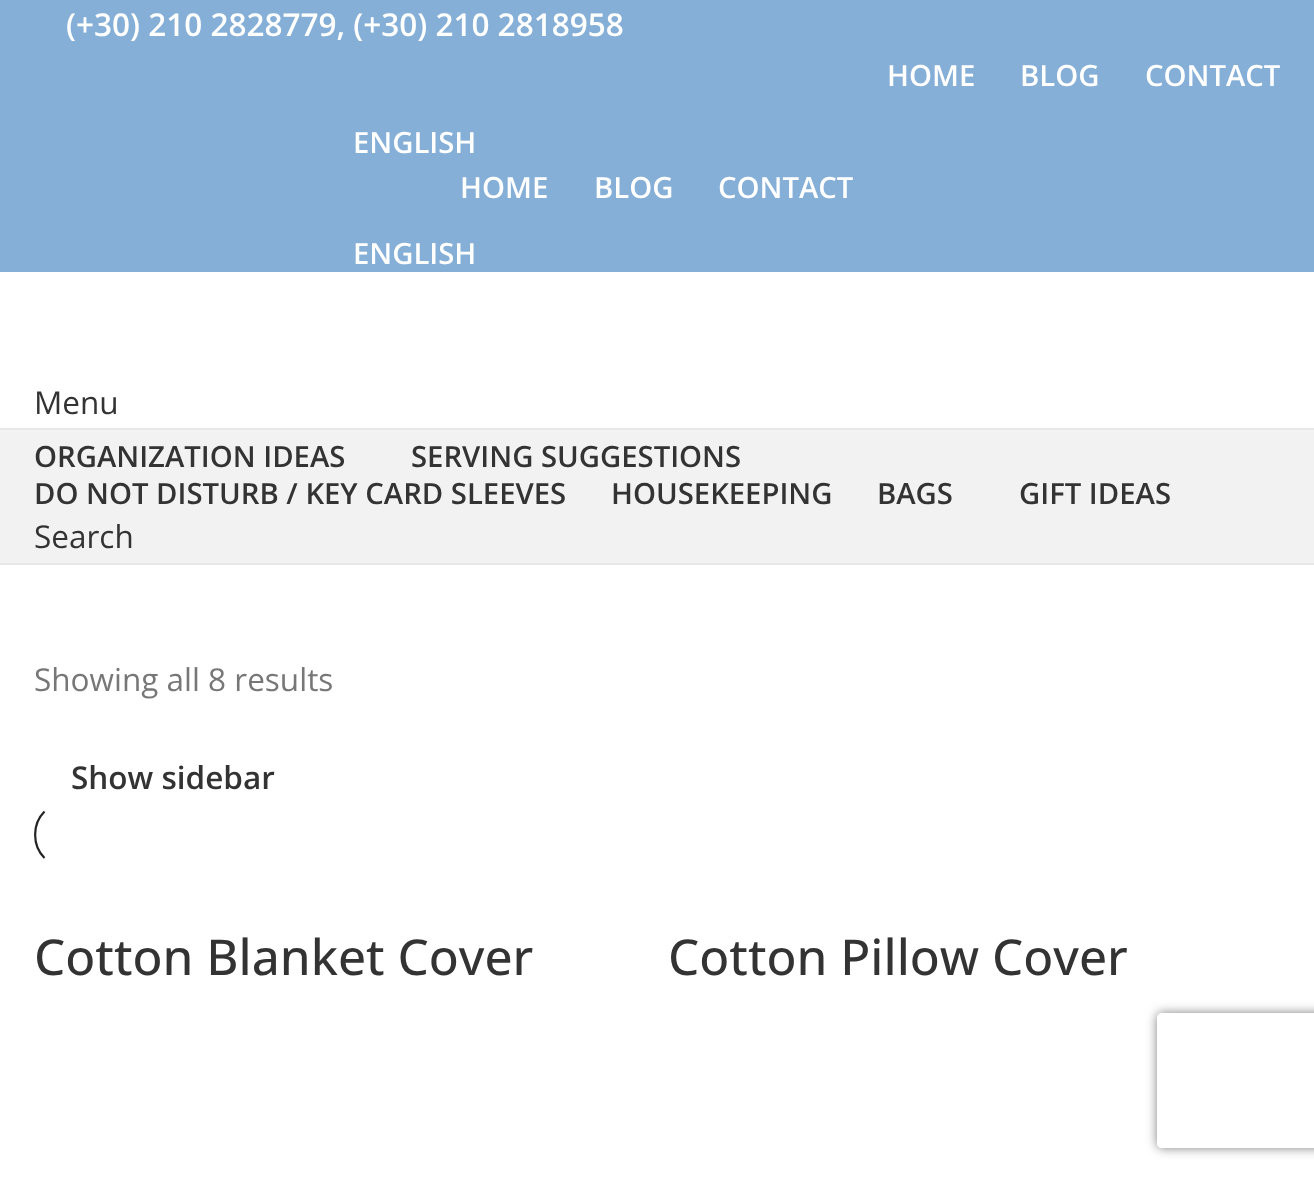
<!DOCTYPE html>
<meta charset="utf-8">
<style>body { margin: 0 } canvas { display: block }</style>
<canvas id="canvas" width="1314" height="1178"></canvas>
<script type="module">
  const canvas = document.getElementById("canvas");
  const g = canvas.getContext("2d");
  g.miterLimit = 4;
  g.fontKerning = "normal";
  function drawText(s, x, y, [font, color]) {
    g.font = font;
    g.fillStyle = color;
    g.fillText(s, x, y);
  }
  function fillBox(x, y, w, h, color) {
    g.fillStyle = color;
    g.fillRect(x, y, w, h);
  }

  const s1 = ["600 31.5px Open Sans", "#FFFFFF"];
  const s2 = ["600 29.25px Open Sans", "#FFFFFF"];
  const s3 = ["31.5px Open Sans", "#333333"];
  const s4 = ["600 29.25px Open Sans", "#333333"];
  const s5 = ["31.5px Open Sans", "#777777"];
  const s6 = ["600 31.5px Open Sans", "#333333"];
  const s7 = ["500 49.5px Open Sans", "#333333"];

  fillBox(0, 0, 1314, 1178, "#FFFFFF");
  fillBox(0, 0, 1314, 272, "#85AFD7");
  drawText("(+30) 210 2828779, (+30) 210 2818958", 66, 36, s1);
  drawText("HOME", 887, 86, s2);
  drawText("BLOG", 1020, 86, s2);
  drawText("CONTACT", 1145, 86, s2);
  drawText("ENGLISH", 353, 153, s2);
  drawText("HOME", 460, 198, s2);
  drawText("BLOG", 594, 198, s2);
  drawText("CONTACT", 718, 198, s2);
  drawText("ENGLISH", 353, 264, s2);
  fillBox(0, 428, 1314, 2, "#E8E8E8");
  drawText("Menu", 34, 414, s3);
  fillBox(0, 430, 1314, 133, "#F2F2F2");
  fillBox(0, 563, 1314, 2, "#E8E8E8");
  drawText("ORGANIZATION IDEAS", 34, 467, s4);
  drawText("SERVING SUGGESTIONS", 411, 467, s4);
  drawText("DO NOT DISTURB / KEY CARD SLEEVES", 34, 504, s4);
  drawText("HOUSEKEEPING", 611, 504, s4);
  drawText("BAGS", 877, 504, s4);
  drawText("GIFT IDEAS", 1019, 504, s4);
  drawText("Search", 34, 548, s3);
  drawText("Showing all 8 results", 34, 691, s5);
  drawText("Show sidebar", 71, 789, s6);
  g.beginPath();
  g.moveTo(44.5, 858);
  g.bezierCurveTo(32, 845.5, 32, 824, 44.5, 811.5);
  g.strokeStyle = "#242424";
  g.lineWidth = 2.2;
  g.stroke();
  drawText("Cotton Blanket Cover", 34, 975, s7);
  drawText("Cotton Pillow Cover", 668, 975, s7);
  g.save();
  g.beginPath();
  g.moveTo(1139, 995);
  g.lineTo(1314, 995);
  g.lineTo(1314, 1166);
  g.lineTo(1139, 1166);
  g.closePath();
  g.moveTo(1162, 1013);
  g.lineTo(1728, 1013);
  g.bezierCurveTo(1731, 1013, 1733, 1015, 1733, 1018);
  g.lineTo(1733, 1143);
  g.bezierCurveTo(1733, 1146, 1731, 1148, 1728, 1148);
  g.lineTo(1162, 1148);
  g.bezierCurveTo(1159, 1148, 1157, 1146, 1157, 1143);
  g.lineTo(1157, 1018);
  g.bezierCurveTo(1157, 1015, 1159, 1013, 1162, 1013);
  g.closePath();
  g.clip("evenodd");
  g.fillStyle = "#808080";
  g.filter = "blur(5.5px)";
  g.beginPath();
  g.roundRect(1157, 1013, 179, 135, 5);
  g.fill();
  g.filter = "none";
  g.restore();
</script>
